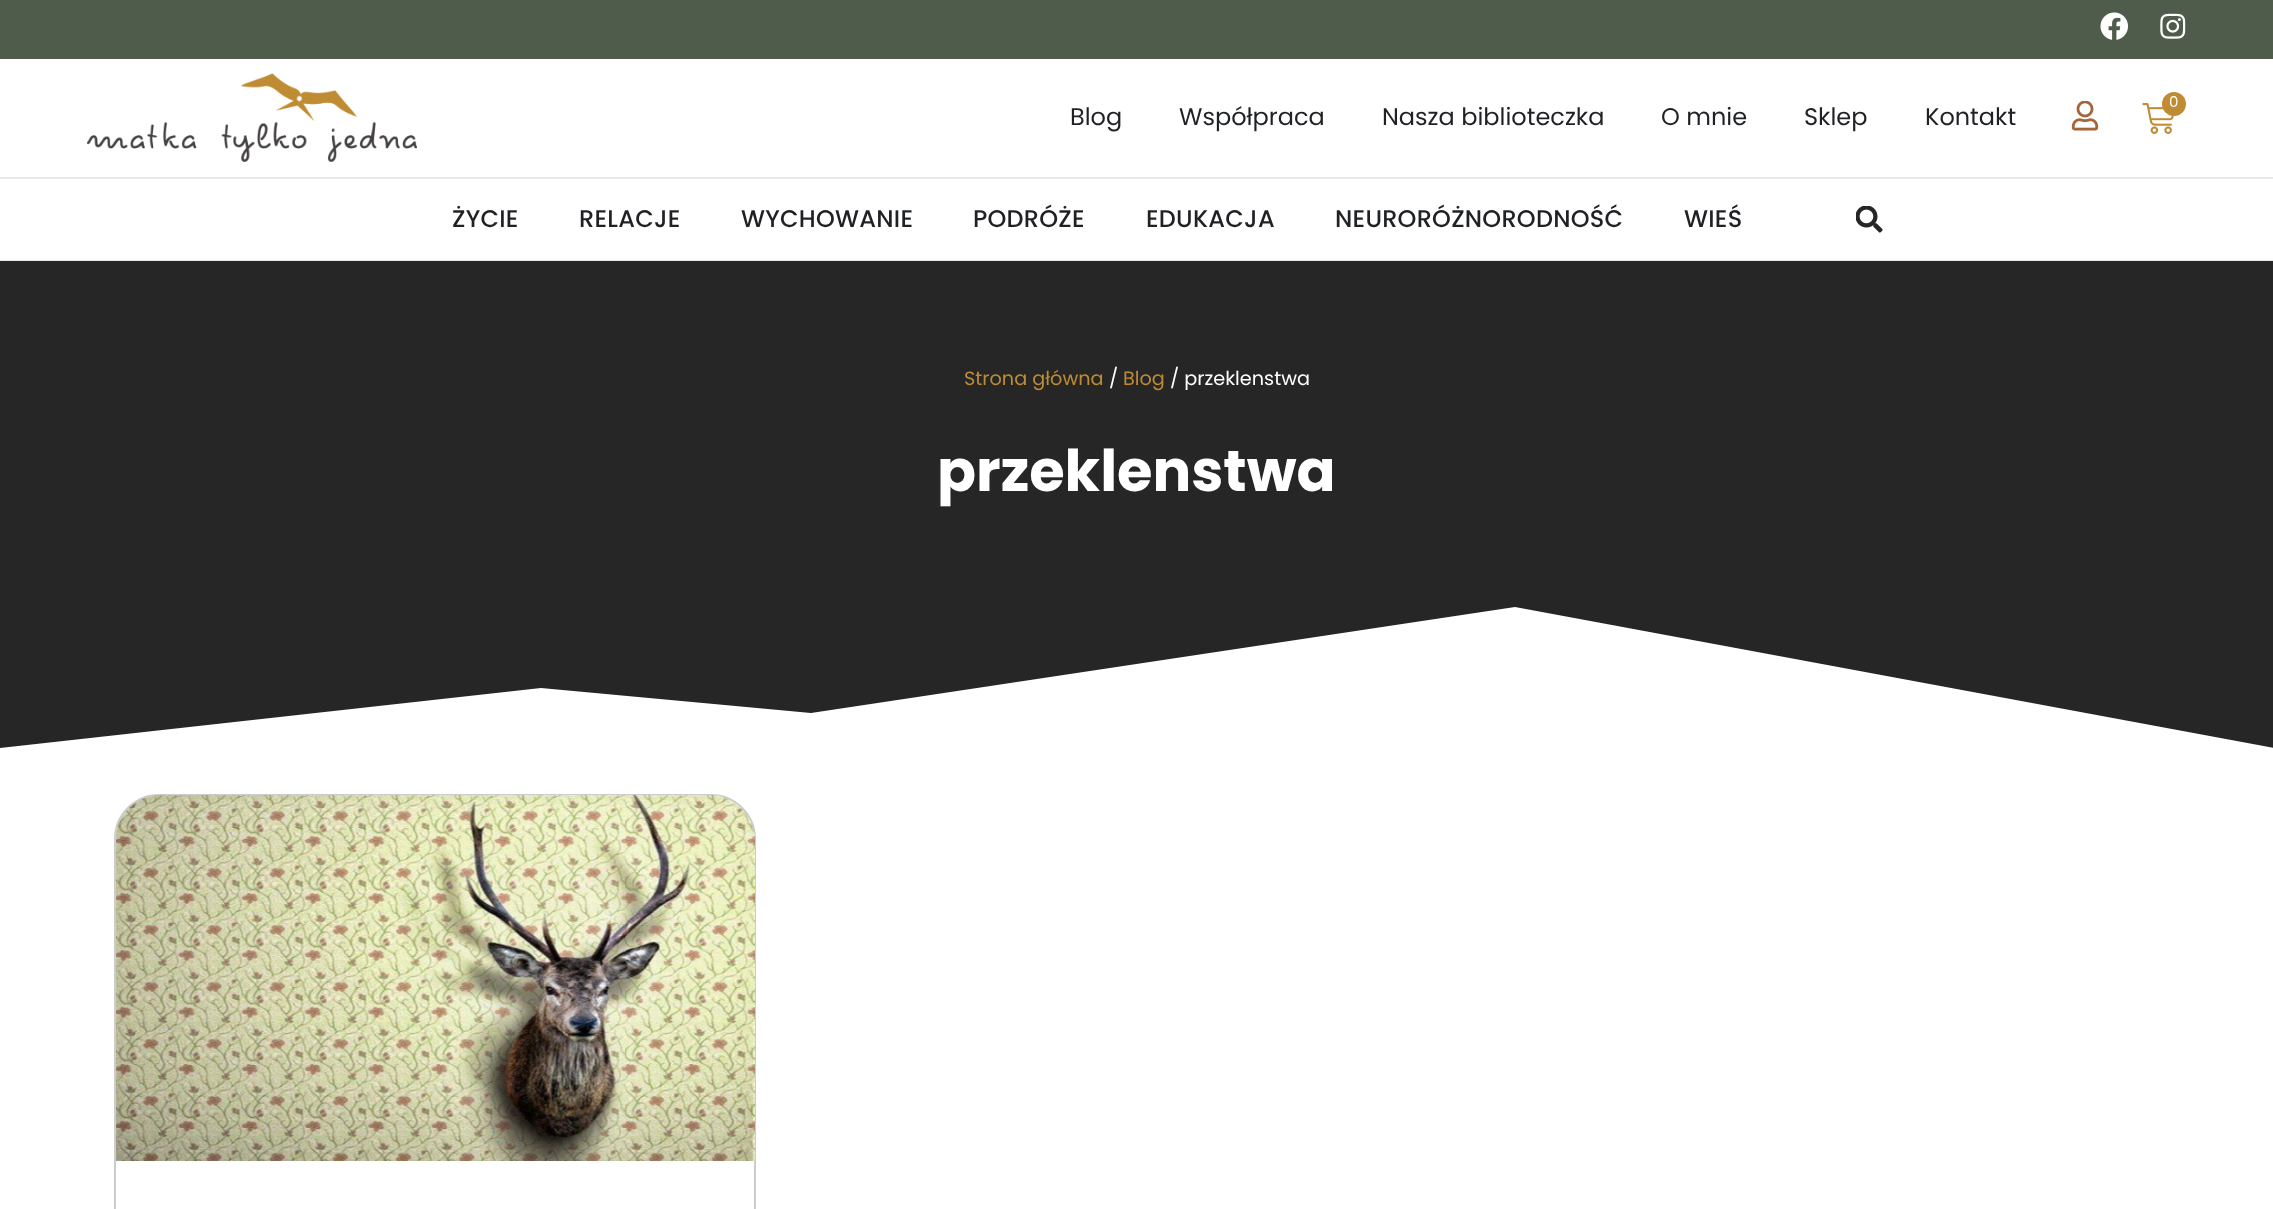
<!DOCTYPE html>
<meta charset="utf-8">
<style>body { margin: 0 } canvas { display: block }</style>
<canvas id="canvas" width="2273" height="1209"></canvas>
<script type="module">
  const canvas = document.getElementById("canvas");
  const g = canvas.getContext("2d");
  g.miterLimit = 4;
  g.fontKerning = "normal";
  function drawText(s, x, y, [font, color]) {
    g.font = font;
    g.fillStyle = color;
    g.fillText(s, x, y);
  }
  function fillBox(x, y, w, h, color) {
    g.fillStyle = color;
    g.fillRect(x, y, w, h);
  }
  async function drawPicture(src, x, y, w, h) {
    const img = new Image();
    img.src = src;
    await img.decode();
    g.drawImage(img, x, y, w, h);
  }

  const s1 = ["24px Poppins", "#1F2124"];
  const s2 = ["15px Poppins", "#FFFFFF"];
  const s3 = ["500 24px Poppins", "#1F2124"];
  const s4 = ["19.25px Poppins", "#BF8C33"];
  const s5 = ["19.25px Poppins", "#FFFFFF"];
  const s6 = ["bold 57.5px Poppins", "#FFFFFF"];

  fillBox(0, 0, 2273, 1209, "#FFFFFF");
  fillBox(0, 0, 2273, 59, "#4F5B4B");
  await drawPicture("pic1.png", 2100, 12, 29, 28);
  await drawPicture("pic2.png", 2160, 13, 26, 26);
  await drawPicture("pic3.png", 87, 73, 330, 89);
  drawText("Blog", 1070, 125, s1);
  drawText("Współpraca", 1179, 125, s1);
  drawText("Nasza biblioteczka", 1382, 125, s1);
  drawText("O mnie", 1661, 125, s1);
  drawText("Sklep", 1804, 125, s1);
  drawText("Kontakt", 1925, 125, s1);
  await drawPicture("pic4.png", 2071, 101, 28, 30);
  await drawPicture("pic5.png", 2142, 103, 32, 31);
  g.fillStyle = "#BF8C33";
  g.beginPath();
  g.arc(2174, 104, 12, 0, Math.PI * 2);
  g.fill();
  drawText("0", 2169, 107, s2);
  fillBox(0, 177, 2273, 2, "#E9E9E9");
  fillBox(0, 260, 2273, 1, "#E9E9E9");
  g.letterSpacing = "0.25px";
  drawText("ŻYCIE", 452, 227, s3);
  drawText("RELACJE", 579, 227, s3);
  drawText("WYCHOWANIE", 741, 227, s3);
  drawText("PODRÓŻE", 973, 227, s3);
  drawText("EDUKACJA", 1146, 227, s3);
  drawText("NEURORÓŻNORODNOŚĆ", 1335, 227, s3);
  drawText("WIEŚ", 1684, 227, s3);
  await drawPicture("pic6.png", 1856, 206, 27, 27);
  fillBox(0, 261, 2273, 487, "#252625");
  g.letterSpacing = "0px";
  drawText("Strona główna", 964, 385, s4);
  drawText("/", 1109, 385, s5);
  drawText("Blog", 1123, 385, s4);
  drawText("/ przeklenstwa", 1170, 385, s5);
  drawText("przeklenstwa", 937, 491, s6);
  g.save();
  g.beginPath();
  g.rect(0, 603, 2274, 150);
  g.clip();
  g.beginPath();
  g.moveTo(541, 688);
  g.lineTo(811, 713);
  g.lineTo(1515, 607);
  g.lineTo(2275, 748);
  g.lineTo(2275, 754);
  g.lineTo(-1, 754);
  g.lineTo(-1, 748);
  g.fill();
  g.restore();
  g.beginPath();
  g.roundRect(115, 795, 640, 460, 44);
  g.strokeStyle = "#CCCCCC";
  g.lineWidth = 2;
  g.stroke();
  await drawPicture("pic7.png", 116, 795, 639, 366);
</script>
